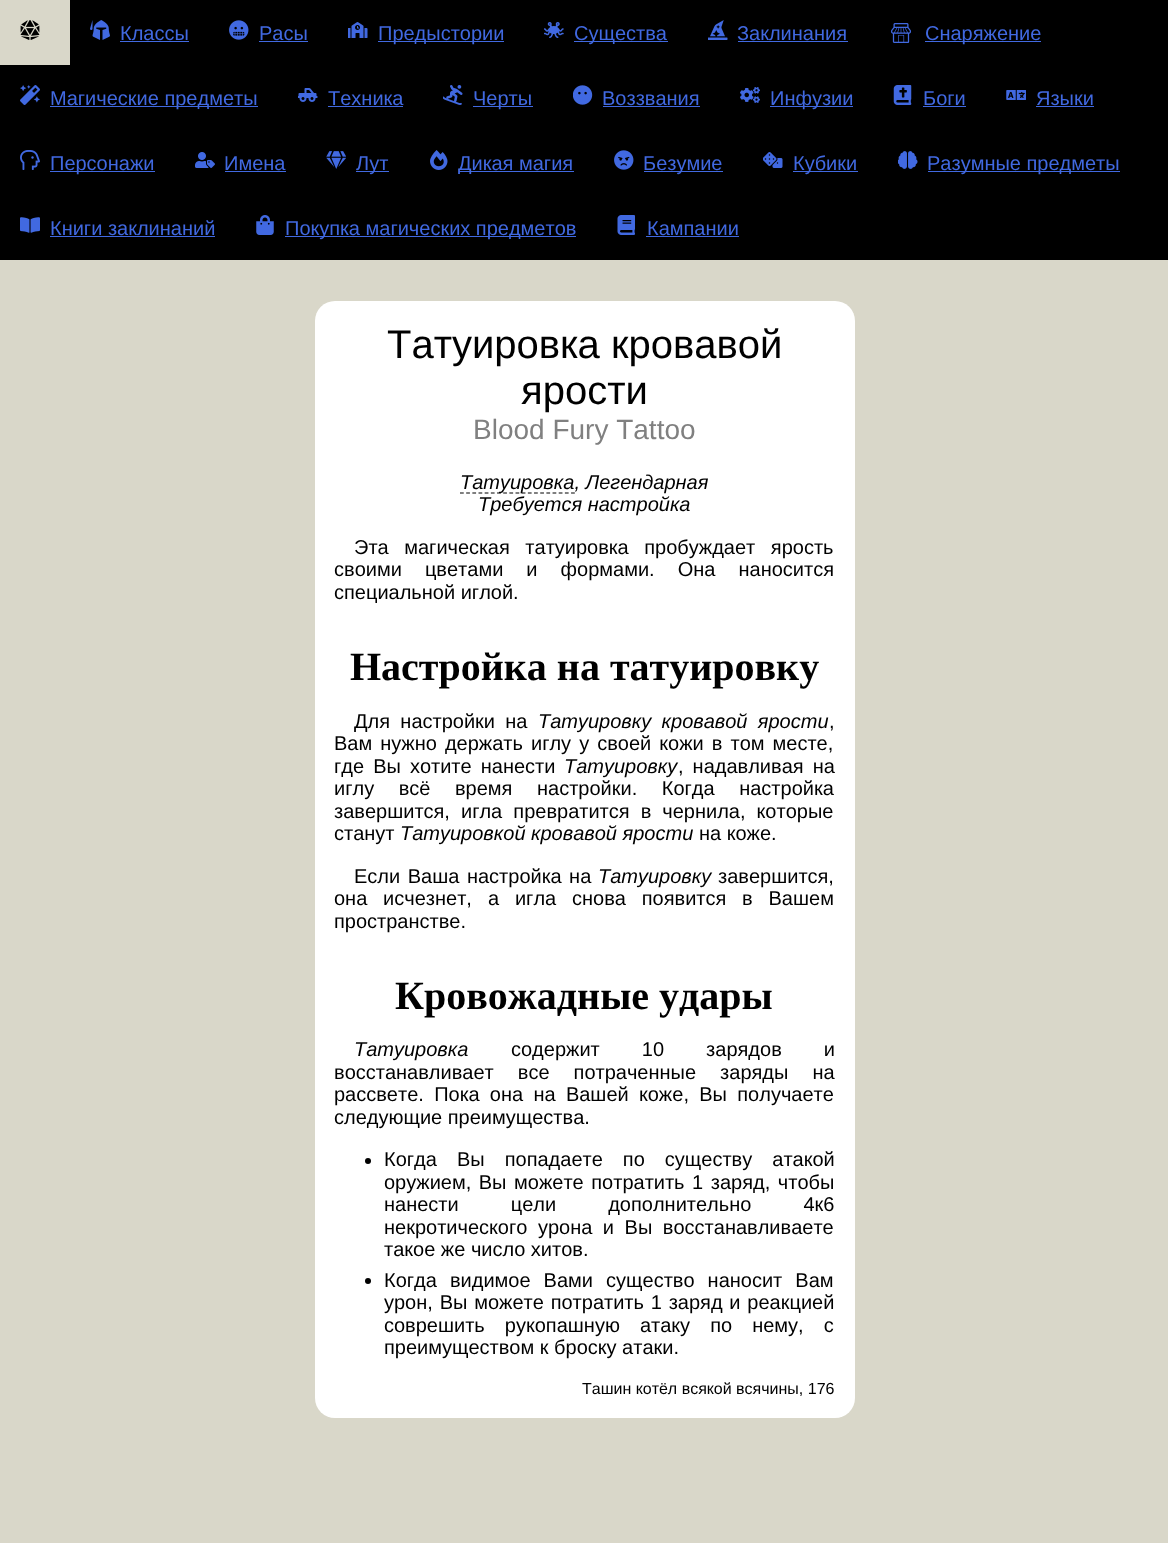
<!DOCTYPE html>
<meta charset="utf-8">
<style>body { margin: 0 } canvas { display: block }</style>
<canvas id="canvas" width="1168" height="1543"></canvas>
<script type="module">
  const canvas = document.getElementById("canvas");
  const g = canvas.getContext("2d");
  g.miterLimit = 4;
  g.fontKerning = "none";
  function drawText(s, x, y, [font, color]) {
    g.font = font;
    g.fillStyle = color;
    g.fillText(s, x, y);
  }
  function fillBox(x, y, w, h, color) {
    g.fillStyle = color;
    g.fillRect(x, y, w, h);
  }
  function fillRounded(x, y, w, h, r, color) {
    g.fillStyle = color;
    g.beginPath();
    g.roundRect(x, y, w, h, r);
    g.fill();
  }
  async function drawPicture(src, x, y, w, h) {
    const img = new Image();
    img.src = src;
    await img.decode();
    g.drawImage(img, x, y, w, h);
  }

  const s1 = ["20px Liberation Sans", "#4169E1"];
  const s2 = ["20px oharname", "#4169E1"];
  const s3 = ["40px Liberation Sans", "#000000"];
  const s4 = ["28px Liberation Sans", "#808080"];
  const s5 = ["italic 20px Liberation Sans", "#000000"];
  const s6 = ["20px Liberation Sans", "#000000"];
  const s7 = ["bold 40px Liberation Serif", "#000000"];
  const s8 = ["16px Liberation Sans", "#000000"];

  fillBox(0, 0, 1168, 1543, "#D9D7C9");
  fillBox(0, 0, 1168, 260, "#000000");
  fillBox(0, 0, 70, 65, "#D9D7C9");
  await drawPicture("pic1.png", 20, 20, 20, 20);
  await drawPicture("pic2.png", 90, 20, 20, 20);
  drawText("Классы", 120, 40, s1);
  fillBox(120, 41, 69, 1, "#4169E1");
  await drawPicture("pic3.png", 229, 20, 20, 20);
  drawText("Расы", 259, 40, s1);
  fillBox(259, 41, 49, 1, "#4169E1");
  await drawPicture("pic4.png", 348, 22, 20, 16);
  fillBox(378, 41, 126, 1, "#4169E1");
  drawText("Предыстории", 378, 40, s1);
  await drawPicture("pic5.png", 544, 22, 20, 16);
  fillBox(574, 41, 94, 1, "#4169E1");
  drawText("Существа", 574, 40, s1);
  await drawPicture("pic6.png", 708, 20, 20, 20);
  drawText("Заклинания", 737, 40, s1);
  fillBox(738, 41, 110, 1, "#4169E1");
  drawText("🏘", 891, 40, s2);
  fillBox(925, 41, 116, 1, "#4169E1");
  drawText("Снаряжение", 925, 40, s1);
  await drawPicture("pic7.png", 20, 85, 20, 20);
  fillBox(50, 106, 208, 1, "#4169E1");
  drawText("Магические предметы", 50, 105, s1);
  await drawPicture("pic8.png", 298, 88, 20, 14);
  drawText("Техника", 328, 105, s1);
  fillBox(328, 106, 75, 1, "#4169E1");
  await drawPicture("pic9.png", 443, 85, 20, 20);
  fillBox(473, 106, 60, 1, "#4169E1");
  drawText("Черты", 473, 105, s1);
  await drawPicture("pic10.png", 573, 85, 20, 20);
  drawText("Воззвания", 602, 105, s1);
  fillBox(603, 106, 97, 1, "#4169E1");
  await drawPicture("pic11.png", 740, 87, 20, 16);
  fillBox(770, 106, 83, 1, "#4169E1");
  drawText("Инфузии", 770, 105, s1);
  await drawPicture("pic12.png", 893, 85, 19, 20);
  drawText("Боги", 923, 105, s1);
  fillBox(923, 106, 43, 1, "#4169E1");
  await drawPicture("pic13.png", 1006, 90, 20, 10);
  drawText("Языки", 1036, 105, s1);
  fillBox(1036, 106, 58, 1, "#4169E1");
  await drawPicture("pic14.png", 20, 150, 20, 20);
  fillBox(50, 171, 105, 1, "#4169E1");
  drawText("Персонажи", 50, 170, s1);
  await drawPicture("pic15.png", 195, 152, 20, 16);
  drawText("Имена", 224, 170, s1);
  fillBox(225, 171, 61, 1, "#4169E1");
  await drawPicture("pic16.png", 326, 151, 20, 18);
  fillBox(356, 171, 33, 1, "#4169E1");
  drawText("Лут", 356, 170, s1);
  await drawPicture("pic17.png", 430, 150, 18, 20);
  fillBox(459, 171, 115, 1, "#4169E1");
  drawText("Дикая магия", 458, 170, s1);
  await drawPicture("pic18.png", 614, 150, 20, 20);
  fillBox(644, 171, 79, 1, "#4169E1");
  drawText("Безумие", 643, 170, s1);
  await drawPicture("pic19.png", 763, 152, 20, 16);
  fillBox(793, 171, 65, 1, "#4169E1");
  drawText("Кубики", 793, 170, s1);
  await drawPicture("pic20.png", 898, 151, 20, 18);
  fillBox(928, 171, 192, 1, "#4169E1");
  drawText("Разумные предметы", 927, 170, s1);
  await drawPicture("pic21.png", 20, 217, 20, 16);
  drawText("Книги заклинаний", 50, 235, s1);
  fillBox(50, 236, 165, 1, "#4169E1");
  await drawPicture("pic22.png", 256, 215, 18, 20);
  fillBox(285, 236, 291, 1, "#4169E1");
  drawText("Покупка магических предметов", 285, 235, s1);
  await drawPicture("pic23.png", 617, 215, 18, 20);
  drawText("Кампании", 647, 235, s1);
  fillBox(646, 236, 93, 1, "#4169E1");
  fillRounded(315, 301, 540, 1117, 20, "#FFFFFF");
  drawText("Татуировка кровавой", 387, 358, s3);
  drawText("ярости", 521, 404, s3);
  drawText("Blood Fury Tattoo", 473, 439, s4);
  g.beginPath();
  g.moveTo(460, 493);
  g.lineTo(575, 493);
  g.strokeStyle = "#000000";
  g.lineWidth = 1.2;
  g.setLineDash([3.75, 2.42]);
  g.stroke();
  drawText("Татуировка, Легендарная", 460, 489, s5);
  drawText("Требуется настройка", 478, 511, s5);
  g.wordSpacing = "10px";
  drawText("Эта магическая татуировка пробуждает ярость", 354, 554, s6);
  g.wordSpacing = "17.5px";
  drawText("своими цветами и формами. Она наносится", 334, 576, s6);
  g.wordSpacing = "0px";
  drawText("специальной иглой.", 334, 599, s6);
  drawText("Настройка на татуировку", 350, 680, s7);
  g.wordSpacing = "4.75px";
  drawText("Для настройки на", 354, 728, s6);
  drawText("Татуировку кровавой ярости", 538, 728, s5);
  g.wordSpacing = "0px";
  drawText(",", 829, 728, s6);
  g.wordSpacing = "2.5px";
  drawText("Вам нужно держать иглу у своей кожи в том месте,", 334, 750, s6);
  g.wordSpacing = "3.5px";
  drawText("где Вы хотите нанести", 334, 773, s6);
  g.wordSpacing = "0px";
  drawText("Татуировку", 564, 773, s5);
  g.wordSpacing = "3.5px";
  drawText(", надавливая на", 678, 773, s6);
  g.wordSpacing = "19px";
  drawText("иглу всё время настройки. Когда настройка", 334, 795, s6);
  g.wordSpacing = "5.5px";
  drawText("завершится, игла превратится в чернила, которые", 334, 818, s6);
  g.wordSpacing = "0px";
  drawText("станут", 334, 840, s6);
  drawText("Татуировкой кровавой ярости", 400, 840, s5);
  drawText("на коже.", 699, 840, s6);
  g.wordSpacing = "2px";
  drawText("Если Ваша настройка на", 354, 883, s6);
  g.wordSpacing = "0px";
  drawText("Татуировку", 598, 883, s5);
  drawText("завершится,", 718, 883, s6);
  g.wordSpacing = "10.25px";
  drawText("она исчезнет,", 334, 905, s6);
  drawText("а игла снова появится в Вашем", 488, 905, s6);
  g.wordSpacing = "0px";
  drawText("пространстве.", 334, 928, s6);
  drawText("Кровожадные удары", 395, 1009, s7);
  drawText("Татуировка", 354, 1056, s5);
  g.wordSpacing = "36.5px";
  drawText("содержит 10 зарядов и", 511, 1056, s6);
  g.wordSpacing = "18.5px";
  drawText("восстанавливает все потраченные заряды на", 334, 1079, s6);
  g.wordSpacing = "4.75px";
  drawText("рассвете. Пока она на Вашей коже, Вы получаете", 334, 1101, s6);
  g.wordSpacing = "0px";
  drawText("следующие преимущества.", 334, 1124, s6);
  g.beginPath();
  g.arc(368, 1161, 3, 0, Math.PI * 2);
  g.fill();
  g.wordSpacing = "14.5px";
  drawText("Когда Вы попадаете по существу атакой", 384, 1166, s6);
  g.wordSpacing = "2px";
  drawText("оружием, Вы можете потратить 1 заряд, чтобы", 384, 1189, s6);
  g.wordSpacing = "46.5px";
  drawText("нанести цели дополнительно 4к6", 384, 1211, s6);
  g.wordSpacing = "5px";
  drawText("некротического урона и Вы восстанавливаете", 384, 1234, s6);
  g.wordSpacing = "0px";
  drawText("такое же число хитов.", 384, 1256, s6);
  g.beginPath();
  g.arc(368, 1281, 3, 0, Math.PI * 2);
  g.fill();
  g.wordSpacing = "7.5px";
  drawText("Когда видимое Вами существо наносит Вам", 384, 1287, s6);
  g.wordSpacing = "1.25px";
  drawText("урон, Вы можете потратить 1 заряд и реакцией", 384, 1309, s6);
  g.wordSpacing = "14.5px";
  drawText("соврешить рукопашную атаку по нему, с", 384, 1332, s6);
  g.wordSpacing = "0px";
  drawText("преимуществом к броску атаки.", 384, 1354, s6);
  drawText("Ташин котёл всякой всячины, 176", 582, 1394, s8);
</script>
